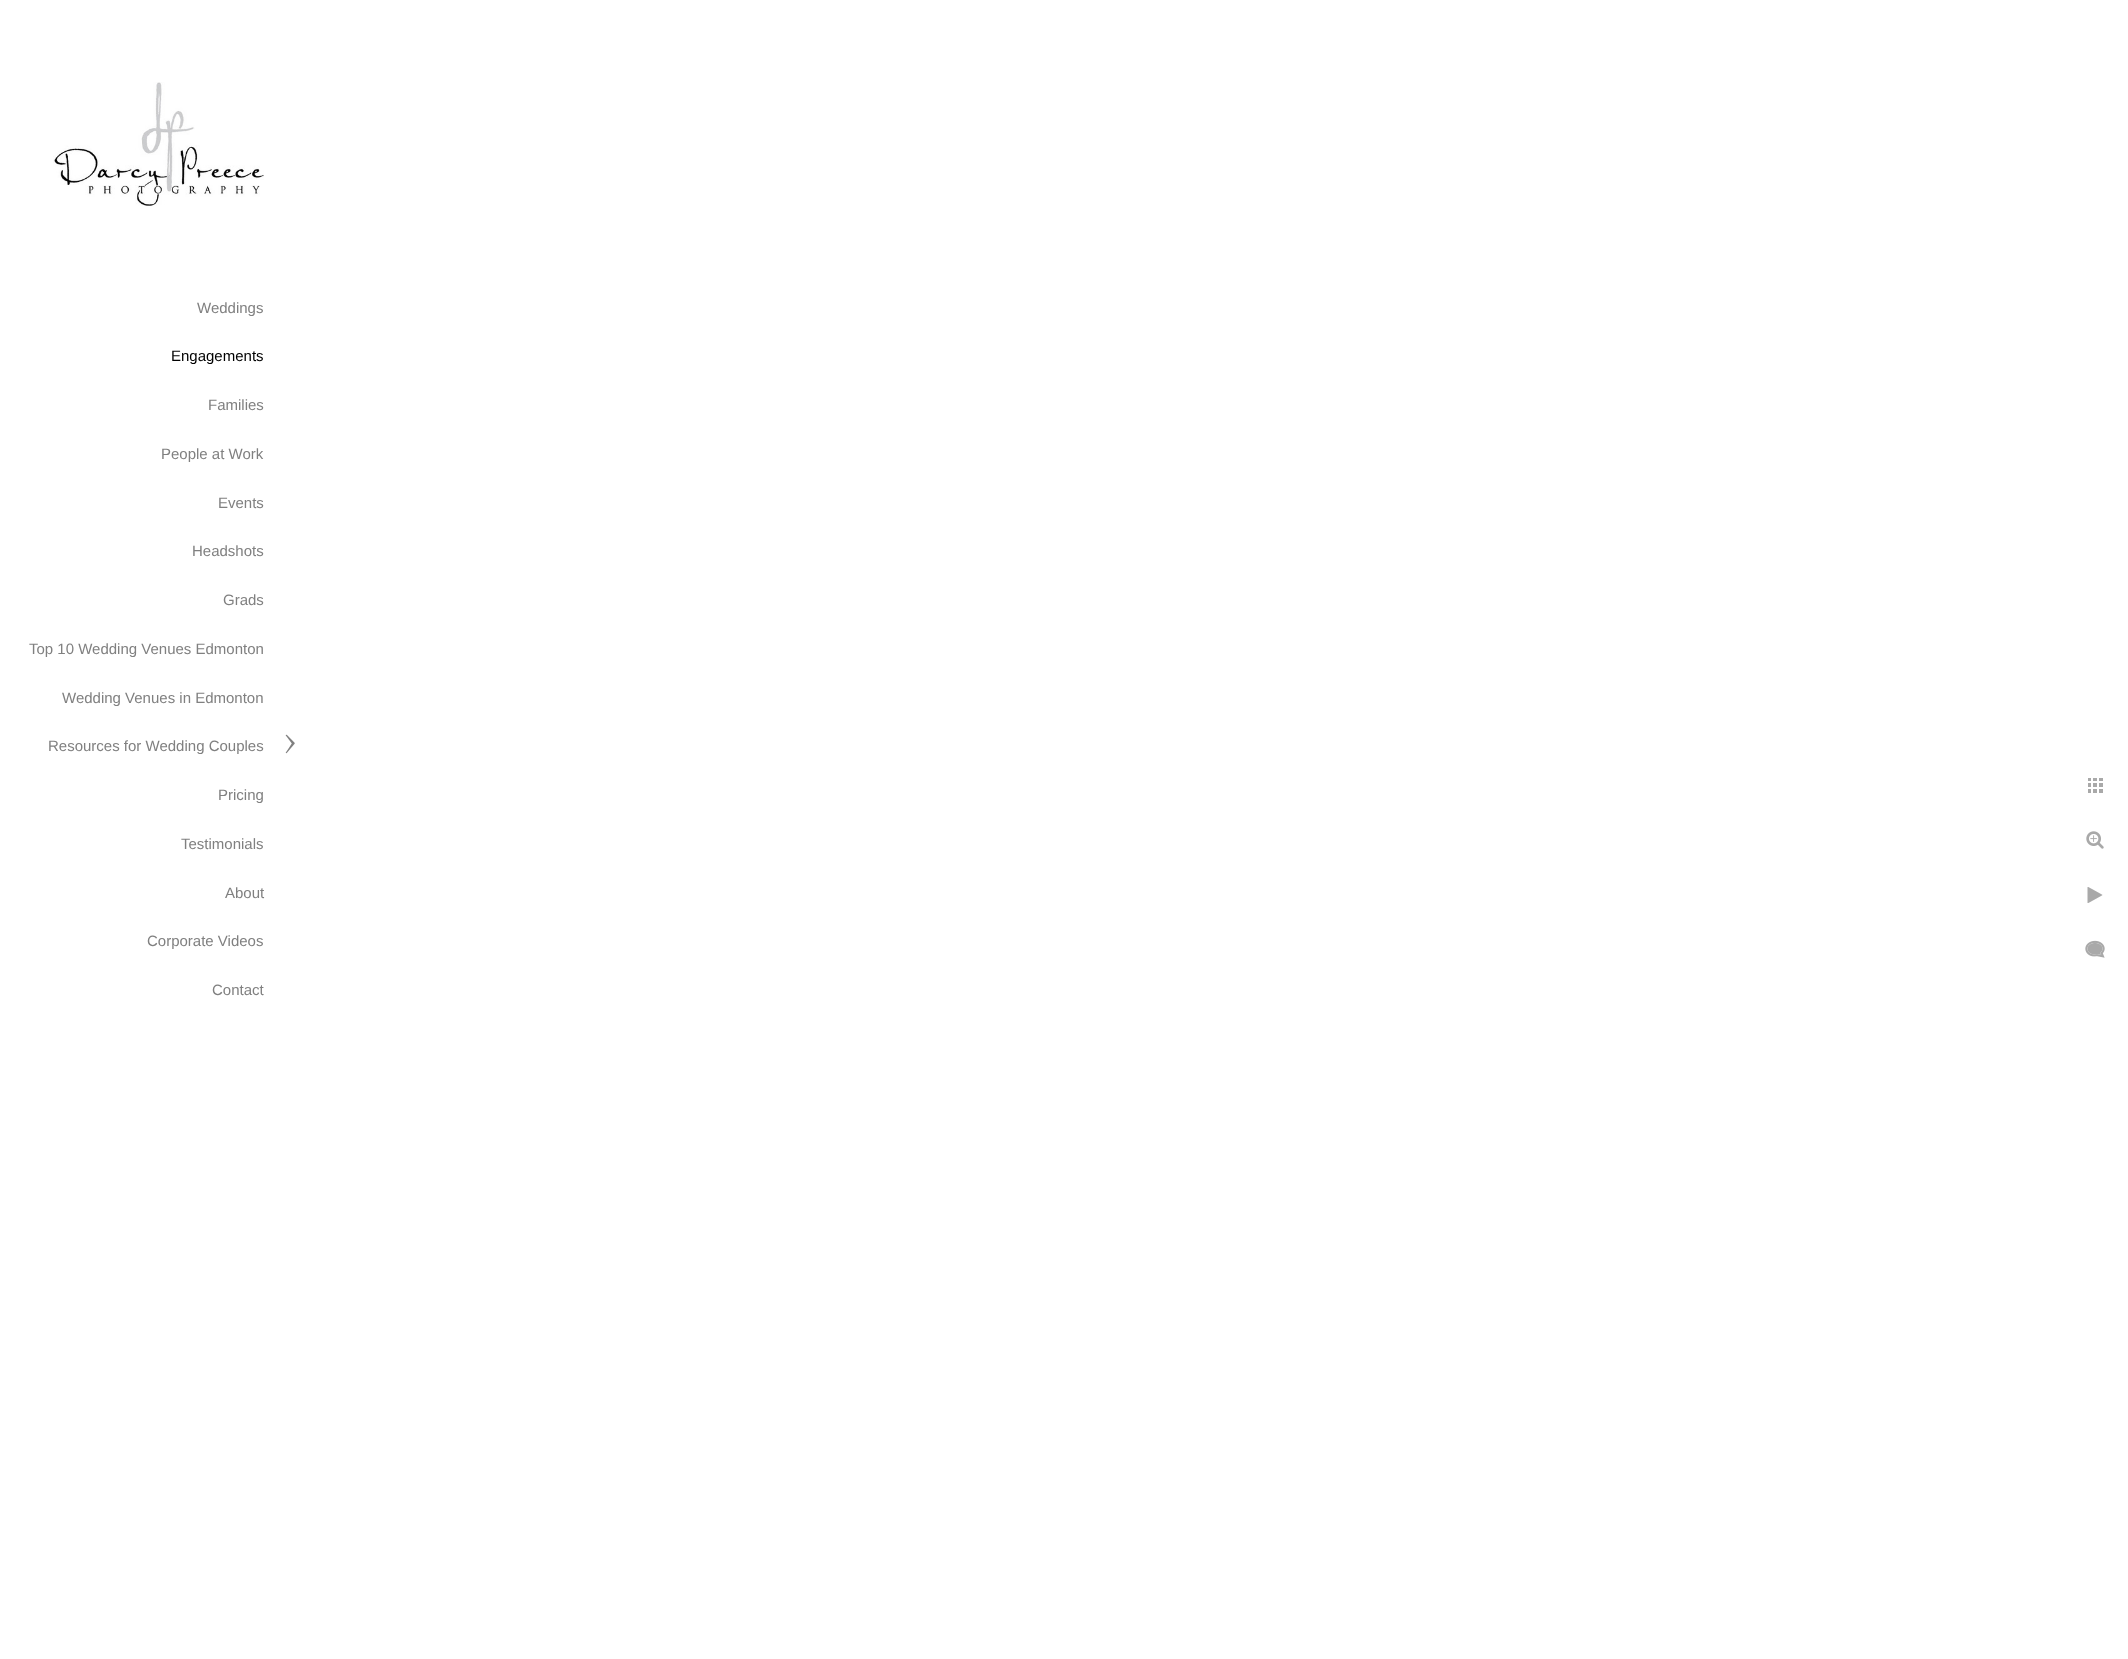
<!DOCTYPE html>
<meta charset="utf-8">
<style>body { margin: 0 } canvas { display: block }</style>
<canvas id="canvas" width="2128" height="1659"></canvas>
<script type="module">
  const canvas = document.getElementById("canvas");
  const g = canvas.getContext("2d");
  g.miterLimit = 4;
  g.fontKerning = "normal";
  function drawText(s, x, y, [font, color]) {
    g.font = font;
    g.fillStyle = color;
    g.fillText(s, x, y);
  }
  function fillBox(x, y, w, h, color) {
    g.fillStyle = color;
    g.fillRect(x, y, w, h);
  }
  async function drawPicture(src, x, y, w, h) {
    const img = new Image();
    img.src = src;
    await img.decode();
    g.drawImage(img, x, y, w, h);
  }

  const s1 = ["15px Liberation Sans", "#808080"];
  const s2 = ["15px Liberation Sans", "#000000"];

  fillBox(0, 0, 2128, 1659, "#FFFFFF");
  await drawPicture("pic1.png", 53, 82, 211, 124);
  drawText("Weddings", 197, 313, s1);
  drawText("Engagements", 171, 361, s2);
  drawText("Families", 208, 410, s1);
  drawText("People at Work", 161, 459, s1);
  drawText("Events", 218, 508, s1);
  drawText("Headshots", 192, 556, s1);
  drawText("Grads", 223, 605, s1);
  drawText("Top 10 Wedding Venues Edmonton", 29, 654, s1);
  drawText("Wedding Venues in Edmonton", 62, 703, s1);
  drawText("Resources for Wedding Couples", 48, 751, s1);
  await drawPicture("pic2.png", 285, 734, 10, 20);
  drawText("Pricing", 218, 800, s1);
  drawText("Testimonials", 181, 849, s1);
  drawText("About", 225, 898, s1);
  drawText("Corporate Videos", 147, 946, s1);
  drawText("Contact", 212, 995, s1);
  await drawPicture("pic3.png", 2088, 778, 15, 15);
  await drawPicture("pic4.png", 2086, 831, 18, 18);
  await drawPicture("pic5.png", 2087, 887, 16, 16);
  await drawPicture("pic6.png", 2085, 940, 20, 18);
</script>
